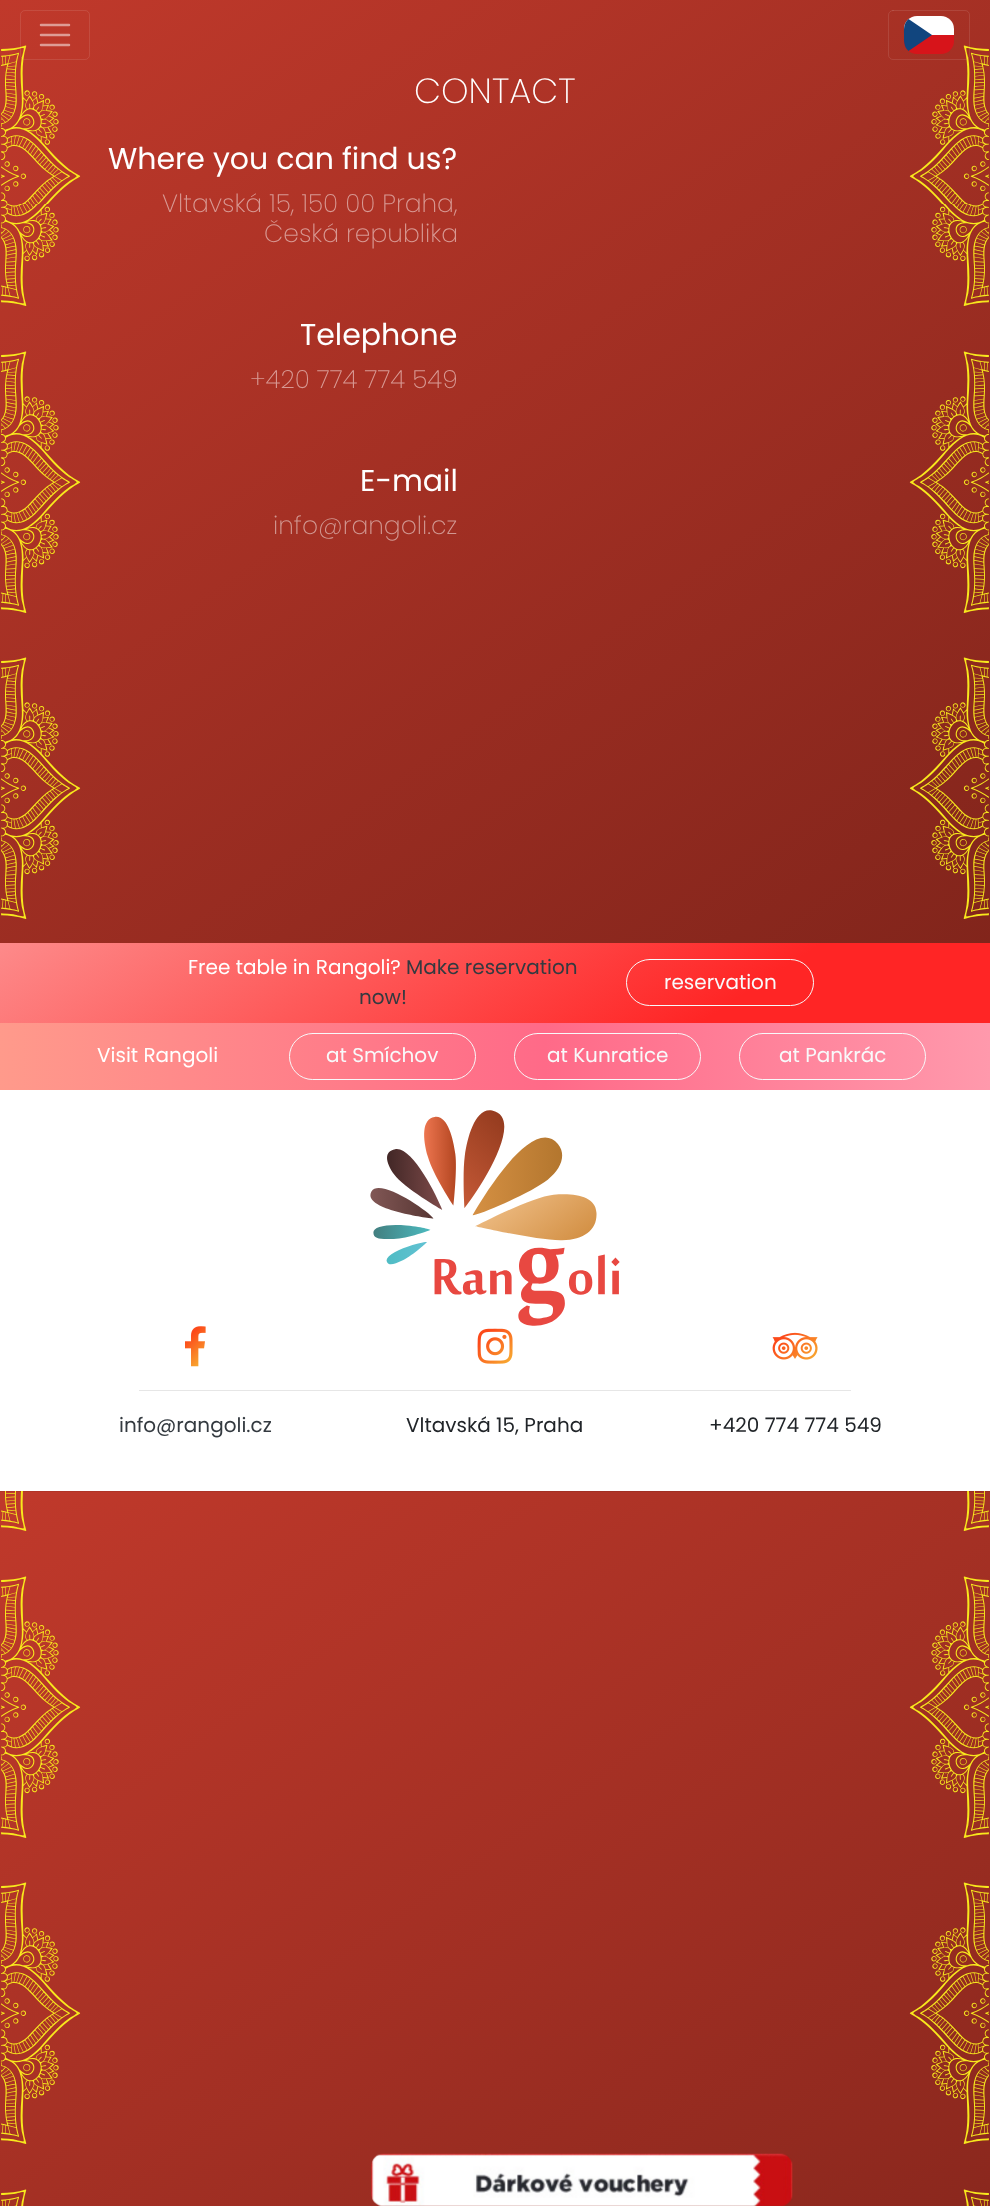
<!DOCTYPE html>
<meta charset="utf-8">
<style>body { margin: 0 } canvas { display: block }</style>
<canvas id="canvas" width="990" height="2206"></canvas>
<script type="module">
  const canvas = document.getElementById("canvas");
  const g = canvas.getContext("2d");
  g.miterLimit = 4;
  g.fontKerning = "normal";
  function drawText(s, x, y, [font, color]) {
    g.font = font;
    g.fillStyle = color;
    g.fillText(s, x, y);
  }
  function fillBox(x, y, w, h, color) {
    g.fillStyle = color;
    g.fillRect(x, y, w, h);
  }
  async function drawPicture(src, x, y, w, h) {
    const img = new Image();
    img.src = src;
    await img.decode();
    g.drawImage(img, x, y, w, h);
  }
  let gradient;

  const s1 = ["200 35px Poppins", "#FFFFFF"];
  const s2 = ["30px Poppins", "#FFFFFF"];
  const s3 = ["200 25px Poppins", "#D89993"];
  const s4 = ["200 25px Poppins", "#D19791"];
  const s5 = ["20px Poppins", "#FFFFFF"];
  const s6 = ["20px Poppins", "#343A40"];
  const s7 = ["20px Poppins", "#F8F9FA"];
  const s8 = ["20px Poppins", "#212529"];

  fillBox(0, 0, 990, 2206, "#FFFFFF");
  await drawPicture("pic1.png", 0, 0, 990, 2206);
  g.beginPath();
  g.roundRect(20.5, 10.5, 69, 49, 4.5);
  g.strokeStyle = "rgba(255, 255, 255, 0.1)";
  g.stroke();
  g.beginPath();
  g.moveTo(41, 25);
  g.lineTo(69, 25);
  g.moveTo(41, 35);
  g.lineTo(69, 35);
  g.moveTo(41, 45);
  g.lineTo(69, 45);
  g.strokeStyle = "#DE9C95";
  g.lineWidth = 2.5;
  g.lineCap = "round";
  g.stroke();
  g.beginPath();
  g.roundRect(888.5, 10.5, 81, 49, 4.5);
  g.strokeStyle = "rgba(255, 255, 255, 0.1)";
  g.lineWidth = 1;
  g.stroke();
  g.beginPath();
  g.roundRect(904, 16, 50, 19, [13, 13, 0, 0]);
  g.fill();
  g.fillStyle = "#D7141A";
  g.beginPath();
  g.roundRect(904, 35, 50, 19, [0, 0, 13, 13]);
  g.fill();
  g.fillStyle = "#11457E";
  g.beginPath();
  g.moveTo(932, 35);
  g.lineTo(908.5, 51);
  g.bezierCurveTo(903.5, 46.5, 904, 41, 904, 35);
  g.bezierCurveTo(904, 29, 903.5, 23.5, 908.5, 19);
  g.closePath();
  g.fill();
  drawText("CONTACT", 414, 103, s1);
  drawText("Where you can find us?", 108, 169, s2);
  drawText("Vltavská 15, 150 00 Praha,", 162, 212, s3);
  drawText("Česká republika", 264, 242, s3);
  drawText("Telephone", 300, 345, s2);
  drawText("+420 774 774 549", 250, 388, s3);
  drawText("E-mail", 360, 491, s2);
  drawText("info@rangoli.cz", 273, 534, s4);
  gradient = g.createLinearGradient(330, 728, 660, 1237);
  gradient.addColorStop(0, "#FD8A8A");
  gradient.addColorStop(0.74, "#FF2525");
  g.fillStyle = gradient;
  g.fillRect(0, 943, 990, 80);
  drawText("Free table in Rangoli?", 188, 974, s5);
  drawText("Make reservation", 406, 974, s6);
  drawText("now!", 359, 1004, s6);
  g.beginPath();
  g.roundRect(626.5, 959.5, 187, 46, 23);
  g.strokeStyle = "#F8F9FA";
  g.stroke();
  drawText("reservation", 664, 989, s7);
  gradient = g.createLinearGradient(0, 1056, 990, 1056);
  gradient.addColorStop(0, "#FF9A8B");
  gradient.addColorStop(0.55, "#FF6A88");
  gradient.addColorStop(1, "#FF99AC");
  g.fillStyle = gradient;
  g.fillRect(0, 1023, 990, 67);
  drawText("Visit Rangoli", 97, 1062, s5);
  g.beginPath();
  g.roundRect(289.5, 1033.5, 186, 46, 23);
  g.stroke();
  drawText("at Smíchov", 326, 1062, s7);
  g.beginPath();
  g.roundRect(514.5, 1033.5, 186, 46, 23);
  g.stroke();
  drawText("at Kunratice", 547, 1062, s7);
  g.beginPath();
  g.roundRect(739.5, 1033.5, 186, 46, 23);
  g.stroke();
  drawText("at Pankrác", 779, 1062, s7);
  fillBox(0, 1090, 990, 401, "#FFFFFF");
  await drawPicture("pic2.png", 370, 1110, 250, 216);
  await drawPicture("pic3.png", 185, 1326, 21, 41);
  await drawPicture("pic4.png", 477, 1328, 36, 36);
  await drawPicture("pic5.png", 772, 1332, 46, 28);
  fillBox(139, 1390, 712, 1, "#E6E6E6");
  drawText("info@rangoli.cz", 119, 1432, s6);
  drawText("Vltavská 15, Praha", 406, 1432, s8);
  drawText("+420 774 774 549", 709, 1432, s8);
  await drawPicture("pic6.png", 371, 2153, 422, 53);
</script>
